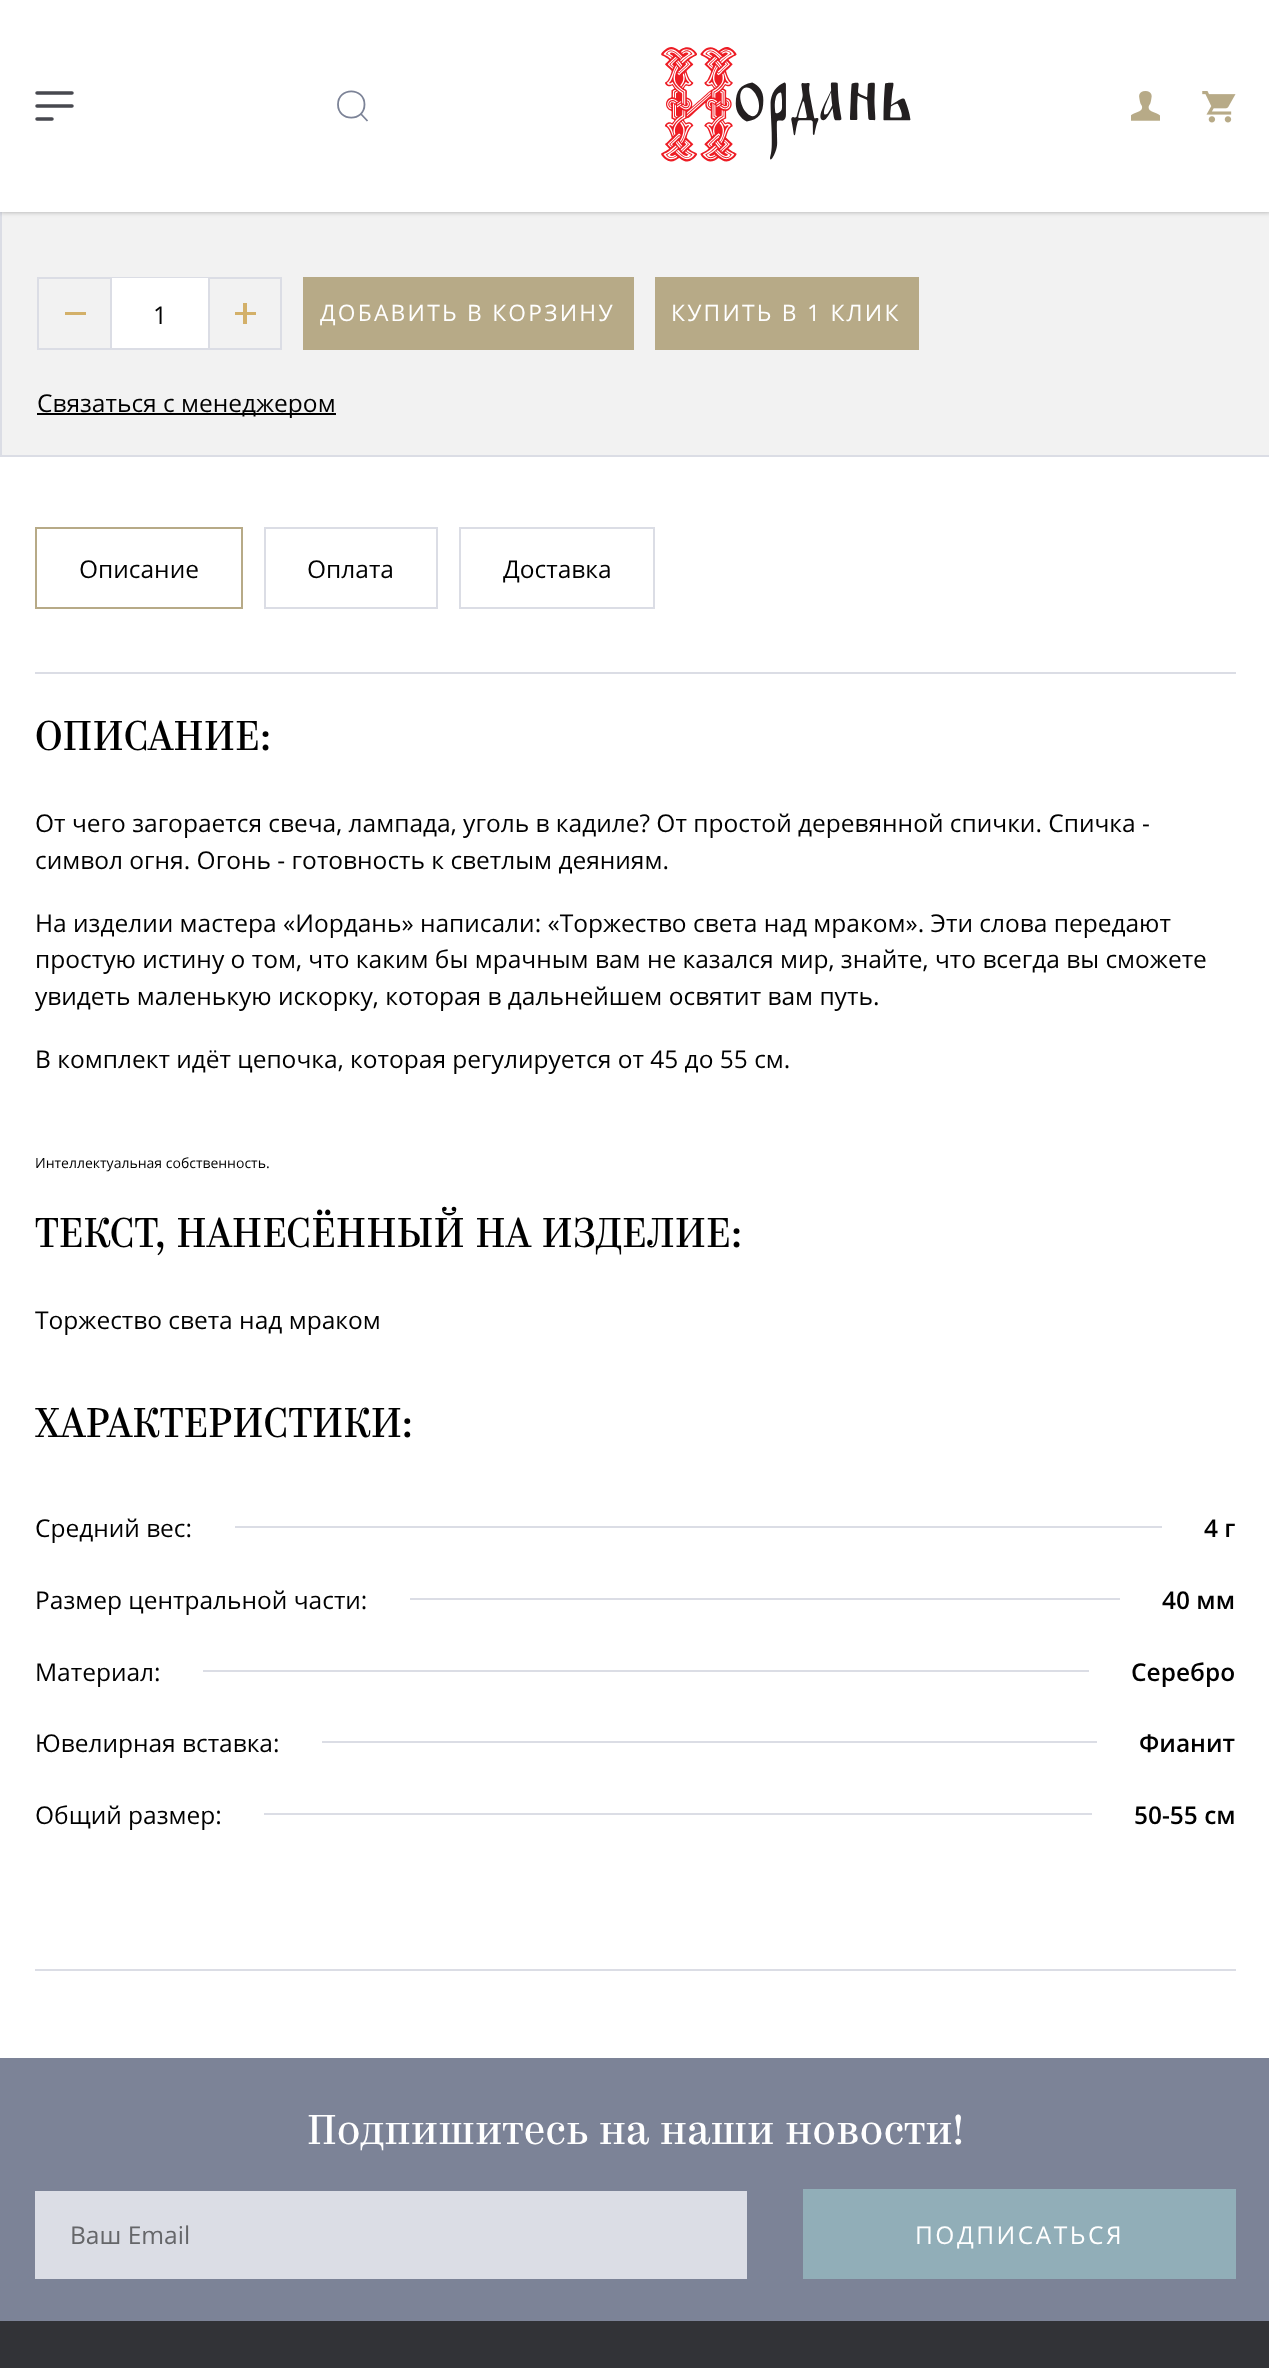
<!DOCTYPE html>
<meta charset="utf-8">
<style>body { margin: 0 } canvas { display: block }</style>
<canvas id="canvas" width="1269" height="2368"></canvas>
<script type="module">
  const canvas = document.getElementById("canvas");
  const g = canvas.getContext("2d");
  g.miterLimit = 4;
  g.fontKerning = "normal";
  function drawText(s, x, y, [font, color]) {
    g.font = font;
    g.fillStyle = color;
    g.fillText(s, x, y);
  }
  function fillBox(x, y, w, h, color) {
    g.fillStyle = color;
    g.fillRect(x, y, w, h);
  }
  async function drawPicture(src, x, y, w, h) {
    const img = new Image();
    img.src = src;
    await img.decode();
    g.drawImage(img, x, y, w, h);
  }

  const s1 = ["24.5px Open Sans", "#000000"];
  const s2 = ["22.75px Open Sans", "#FFFFFF"];
  const s3 = ["42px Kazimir", "#000000"];
  const s4 = ["14px Open Sans", "#000000"];
  const s5 = ["600 24.5px Open Sans", "#000000"];
  const s6 = ["42px Kazimir", "#FFFFFF"];
  const s7 = ["24.5px Open Sans", "#656669"];
  const s8 = ["24.5px Open Sans", "#FFFFFF"];

  fillBox(0, 0, 1269, 2368, "#FFFFFF");
  fillBox(2, 212, 1267, 243, "#F2F2F2");
  g.strokeStyle = "#DBDDE5";
  g.lineWidth = 2;
  g.strokeRect(1, -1, 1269, 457);
  g.fillStyle = "rgba(0, 0, 0, 0.3)";
  g.filter = "blur(2.5px)";
  g.beginPath();
  g.rect(0, 0, 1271, 212);
  g.fill();
  g.filter = "none";
  fillBox(0, 0, 1269, 212, "#FFFFFF");
  g.beginPath();
  g.moveTo(37, 119);
  g.lineTo(52, 119);
  g.moveTo(37, 93);
  g.lineTo(72, 93);
  g.closePath();
  g.moveTo(37, 106);
  g.lineTo(72, 106);
  g.closePath();
  g.strokeStyle = "#47484F";
  g.lineWidth = 3.5;
  g.lineCap = "round";
  g.lineJoin = "round";
  g.stroke();
  g.beginPath();
  g.moveTo(367.5, 121);
  g.lineTo(360.5, 113.5);
  g.closePath();
  g.moveTo(364.5, 104.5);
  g.bezierCurveTo(364.5, 122, 338, 122, 338, 104.5);
  g.bezierCurveTo(338, 87, 364.5, 87, 364.5, 104.5);
  g.closePath();
  g.strokeStyle = "#7C8397";
  g.lineWidth = 1.8;
  g.lineJoin = "miter";
  g.stroke();
  await drawPicture("pic1.png", 661, 47, 250, 115);
  await drawPicture("pic2.png", 1131, 91, 29, 30);
  await drawPicture("pic3.png", 1202, 91, 34, 32);
  g.strokeStyle = "#DBDDE5";
  g.lineWidth = 2;
  g.strokeRect(38, 278, 243, 71);
  fillBox(110, 278, 2, 70, "#DBDDE5");
  fillBox(65, 312, 21, 3, "#D3B069");
  fillBox(112, 278, 96, 70, "#FFFFFF");
  drawText("1", 153, 324, s1);
  fillBox(208, 278, 2, 70, "#DBDDE5");
  fillBox(235, 312, 21, 3, "#D3B069");
  fillBox(243, 303, 4, 21, "#D3B069");
  fillBox(303, 277, 331, 73, "#B7AA87");
  g.letterSpacing = "2.25px";
  drawText("ДОБАВИТЬ В КОРЗИНУ", 320, 321, s2);
  fillBox(655, 277, 264, 73, "#B7AA87");
  drawText("КУПИТЬ В 1 КЛИК", 671, 321, s2);
  fillBox(37, 413, 299, 2, "#000000");
  g.letterSpacing = "0px";
  drawText("Связаться с менеджером", 37, 412, s1);
  fillBox(35, 1969, 1201, 2, "#DBDDE5");
  g.strokeStyle = "#B7AA87";
  g.strokeRect(36, 528, 206, 80);
  drawText("Описание", 79, 578, s1);
  g.strokeStyle = "#DBDDE5";
  g.strokeRect(265, 528, 172, 80);
  drawText("Оплата", 307, 578, s1);
  g.strokeRect(460, 528, 194, 80);
  drawText("Доставка", 503, 578, s1);
  fillBox(35, 672, 1201, 2, "#DBDDE5");
  drawText("ОПИСАНИЕ:", 35, 750, s3);
  drawText("От чего загорается свеча, лампада, уголь в кадиле? От простой деревянной спички. Спичка -", 35, 832, s1);
  drawText("символ огня. Огонь - готовность к светлым деяниям.", 35, 869, s1);
  drawText("На изделии мастера «Иордань» написали: «Торжество света над мраком». Эти слова передают", 35, 932, s1);
  drawText("простую истину о том, что каким бы мрачным вам не казался мир, знайте, что всегда вы сможете", 35, 968, s1);
  drawText("увидеть маленькую искорку, которая в дальнейшем освятит вам путь.", 35, 1005, s1);
  drawText("В комплект идёт цепочка, которая регулируется от 45 до 55 см.", 35, 1068, s1);
  drawText("Интеллектуальная собственность.", 35, 1168, s4);
  drawText("ТЕКСТ, НАНЕСЁННЫЙ НА ИЗДЕЛИЕ:", 35, 1247, s3);
  drawText("Торжество света над мраком", 35, 1329, s1);
  drawText("ХАРАКТЕРИСТИКИ:", 35, 1437, s3);
  drawText("Средний вес:", 35, 1537, s1);
  fillBox(235, 1526, 927, 2, "#DBDDE5");
  drawText("4 г", 1204, 1537, s5);
  drawText("Размер центральной части:", 35, 1609, s1);
  fillBox(410, 1598, 710, 2, "#DBDDE5");
  drawText("40 мм", 1162, 1609, s5);
  drawText("Материал:", 35, 1681, s1);
  fillBox(203, 1670, 886, 2, "#DBDDE5");
  drawText("Серебро", 1131, 1681, s5);
  drawText("Ювелирная вставка:", 35, 1752, s1);
  fillBox(322, 1741, 775, 2, "#DBDDE5");
  drawText("Фианит", 1139, 1752, s5);
  drawText("Общий размер:", 35, 1824, s1);
  fillBox(264, 1813, 828, 2, "#DBDDE5");
  drawText("50-55 см", 1134, 1824, s5);
  fillBox(0, 2058, 1269, 263, "#7C8397");
  drawText("Подпишитесь на наши новости!", 307, 2144, s6);
  fillBox(35, 2191, 712, 88, "#DBDDE5");
  drawText("Ваш Email", 70, 2244, s7);
  fillBox(803, 2189, 433, 90, "#91AEB8");
  g.letterSpacing = "2.5px";
  drawText("ПОДПИСАТЬСЯ", 915, 2244, s8);
  fillBox(0, 2321, 1269, 47, "#323337");
</script>
